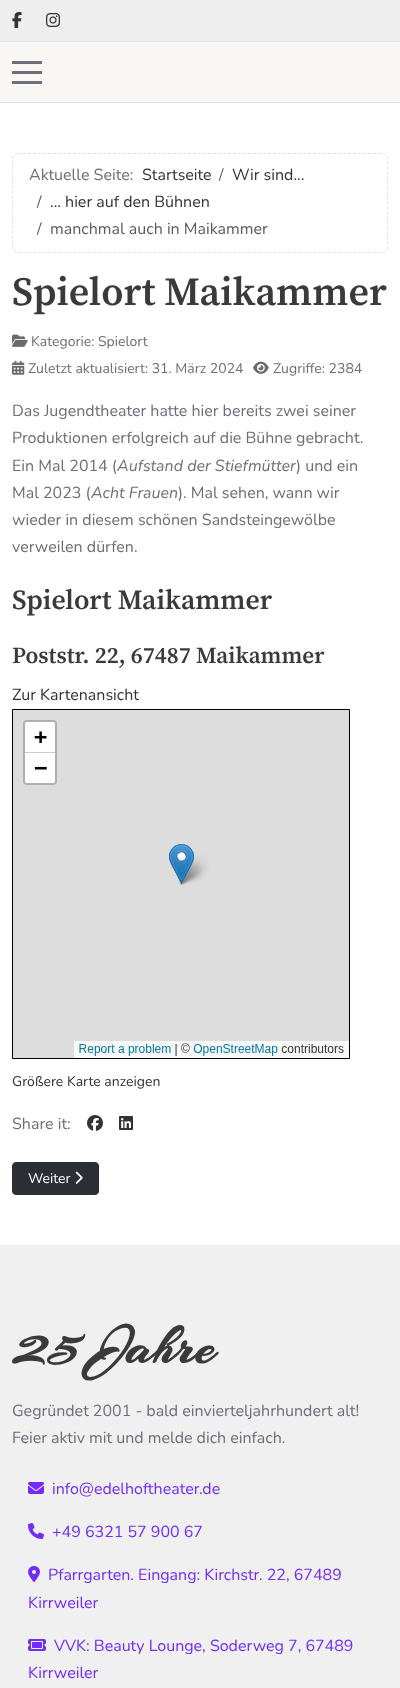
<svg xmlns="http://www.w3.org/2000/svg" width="400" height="1688">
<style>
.a{font:16px Nunito;fill:#6e6d7a}
.b{font:16px Nunito;fill:#333}
.c{font:16px Nunito;fill:#595c5f}
.d{font:600 40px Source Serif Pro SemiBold;fill:#3a3a3a}
.e{font:14px Nunito;fill:#6e6d7a}
.f{font:14px Nunito;fill:#6b6b6b}
.g{font:italic 16px Nunito;fill:#6e6d7a}
.h{font:600 27.75px Source Serif Pro SemiBold;fill:#3a3a3a}
.i{font:600 23.1px Source Serif Pro SemiBold;fill:#3a3a3a}
.j{font:14px Nunito;fill:#333}
.k{font:14px Nunito;fill:#fff}
.l{font:bold 56px Arizonia;fill:#3a3a3a}
.m{font:16px Nunito;fill:#712cf9}
</style>
<rect width="100%" height="100%" fill="#fff"/>
<path fill="#eee" d="M0 0h400v41H0z"/>
<path fill="#dee2e6" d="M0 41h400v1H0z"/>
<image href="1.png" x="12" y="12" width="10" height="16"/>
<image href="2.png" x="46" y="13" width="14" height="14"/>
<path fill="#f8f7f4" d="M0 42h400v60H0z"/>
<path fill="#dee2e6" d="M0 102h400v1H0z"/>
<path fill="#6e6d7a" d="M12 71h30v3H12z"/>
<path fill="#6e6d7a" d="M12 61h30v3H12z"/>
<path fill="#6e6d7a" d="M12 81h30v3H12z"/>
<path fill="none" stroke="#dee2e6" stroke-dasharray="3 2" d="M18 153.5h364c3 0 5.5 2.5 5.5 5.5v88c0 3-2.5 5.5-5.5 5.5h-364c-3 0-5.5-2.5-5.5-5.5v-88c0-3 2.5-5.5 5.5-5.5z"/>
<image href="3.png" x="12" y="334" width="16" height="13"/>
<image href="4.png" x="12" y="360" width="13" height="15"/>
<image href="5.png" x="253" y="361" width="16" height="13"/>
<path fill="none" stroke="#000" d="M12.5 709.5h337v349H12.5z"/>
<image href="6.png" x="13" y="710" width="336" height="348"/>
<image href="7.png" x="87" y="1115" width="16" height="16"/>
<image href="8.png" x="119" y="1116" width="14" height="14"/>
<rect fill="#2c2e36" stroke="#2c2e36" x="12.5" y="1162.5" width="86" height="32" rx="3.5"/>
<image href="9.png" x="75" y="1171" width="8" height="13"/>
<path fill="#f0f0f0" d="M0 1245h400v443H0z"/>
<image href="10.png" x="28" y="1482" width="16" height="12"/>
<image href="11.png" x="28" y="1523" width="16" height="16"/>
<image href="12.png" x="28" y="1566" width="12" height="16"/>
<image href="13.png" x="28" y="1639" width="18" height="12"/>
<text class="a" x="29" y="180">Aktuelle Seite:</text>
<text class="b" x="142" y="180">Startseite</text>
<text class="c" x="219" y="180">/</text>
<text class="b" x="232" y="180">Wir sind...</text>
<text class="c" x="37" y="207">/</text>
<text class="b" x="50" y="207">... hier auf den Bühnen</text>
<text class="c" x="37" y="234">/</text>
<text class="c" x="50" y="234">manchmal auch in Maikammer</text>
<text class="d" x="12" y="305">Spielort Maikammer</text>
<text class="e" x="31" y="346">Kategorie:</text>
<text class="f" x="98" y="346">Spielort</text>
<text class="e" x="28" y="373">Zuletzt aktualisiert: 31. März 2024</text>
<text class="e" x="273" y="373">Zugriffe: 2384</text>
<text class="a" x="12" y="416">Das Jugendtheater hatte hier bereits zwei seiner</text>
<text class="a" x="12" y="443">Produktionen erfolgreich auf die Bühne gebracht.</text>
<text class="a" x="12" y="471">Ein Mal 2014 (</text>
<text class="g" x="117" y="471">Aufstand der Stiefmütter</text>
<text class="a" x="296" y="471">) und ein</text>
<text class="a" x="12" y="498">Mal 2023 (</text>
<text class="g" x="91" y="498">Acht Frauen</text>
<text class="a" x="178" y="498">). Mal sehen, wann wir</text>
<text class="a" x="12" y="525">wieder in diesem schönen Sandsteingewölbe</text>
<text class="a" x="12" y="552">verweilen dürfen.</text>
<text class="h" x="12" y="609">Spielort Maikammer</text>
<text class="i" x="12" y="663">Poststr. 22, 67487 Maikammer</text>
<text class="b" x="12" y="700">Zur Kartenansicht</text>
<text class="j" x="12" y="1086">Größere Karte anzeigen</text>
<text class="a" x="12" y="1129">Share it:</text>
<text class="k" x="28" y="1183">Weiter</text>
<text class="l" x="12" y="1363">25 Jahre</text>
<text class="a" x="12" y="1416">Gegründet 2001 - bald einvierteljahrhundert alt!</text>
<text class="a" x="12" y="1443">Feier aktiv mit und melde dich einfach.</text>
<text class="m" x="52" y="1494">info@edelhoftheater.de</text>
<text class="m" x="52" y="1537">+49 6321 57 900 67</text>
<text class="m" x="48" y="1580">Pfarrgarten. Eingang: Kirchstr. 22, 67489</text>
<text class="m" x="28" y="1608">Kirrweiler</text>
<text class="m" x="54" y="1651">VVK: Beauty Lounge, Soderweg 7, 67489</text>
<text class="m" x="28" y="1678">Kirrweiler</text>
</svg>
